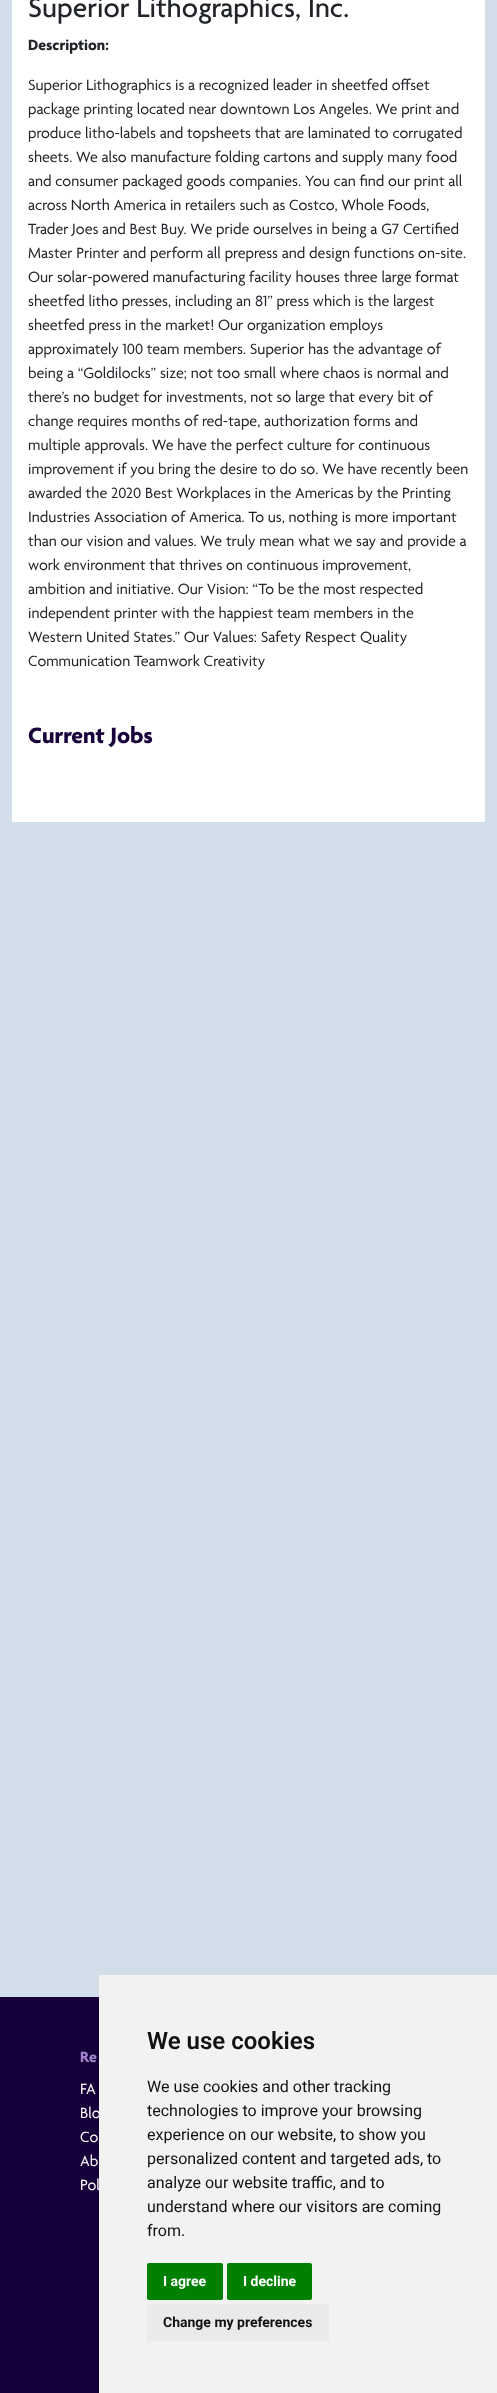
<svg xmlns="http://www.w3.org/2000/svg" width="497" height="2393">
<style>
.a{font:500 29.5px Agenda;fill:#212529}
.b{font:bold 16px Agenda;fill:#212529}
.c{font:16px Agenda;fill:#212529}
.d{font:bold 24px Agenda;fill:#170039}
.e{font:bold 16px Agenda;fill:#a084ce}
.f{font:16px Agenda;fill:#fff}
.g{font:600 24px Roboto;fill:#111}
.h{font:16px Roboto;fill:#111}
.i{font:bold 14px Roboto;fill:#fff}
.j{font:bold 14px Roboto;fill:#111}
</style>
<rect width="100%" height="100%" fill="#d2dfeb"/>
<path fill="#fff" d="M12 0h473v822H12z"/>
<path fill="#170039" d="M0 1997h99v396H0z"/>
<text class="a" x="28" y="17">Superior Lithographics, Inc.</text>
<text class="b" x="28" y="50">Description:</text>
<text class="c" x="28" y="90">Superior Lithographics is a recognized leader in sheetfed offset</text>
<text class="c" x="28" y="114">package printing located near downtown Los Angeles. We print and</text>
<text class="c" x="28" y="138">produce litho-labels and topsheets that are laminated to corrugated</text>
<text class="c" x="28" y="162">sheets. We also manufacture folding cartons and supply many food</text>
<text class="c" x="28" y="186">and consumer packaged goods companies. You can find our print all</text>
<text class="c" x="28" y="210">across North America in retailers such as Costco, Whole Foods,</text>
<text class="c" x="28" y="234">Trader Joes and Best Buy. We pride ourselves in being a G7 Certified</text>
<text class="c" x="28" y="258">Master Printer and perform all prepress and design functions on-site.</text>
<text class="c" x="28" y="282">Our solar-powered manufacturing facility houses three large format</text>
<text class="c" x="28" y="306">sheetfed litho presses, including an 81” press which is the largest</text>
<text class="c" x="28" y="330">sheetfed press in the market! Our organization employs</text>
<text class="c" x="28" y="354">approximately 100 team members. Superior has the advantage of</text>
<text class="c" x="28" y="378">being a “Goldilocks” size; not too small where chaos is normal and</text>
<text class="c" x="28" y="402">there’s no budget for investments, not so large that every bit of</text>
<text class="c" x="28" y="426">change requires months of red-tape, authorization forms and</text>
<text class="c" x="28" y="450">multiple approvals. We have the perfect culture for continuous</text>
<text class="c" x="28" y="474">improvement if you bring the desire to do so. We have recently been</text>
<text class="c" x="28" y="498">awarded the 2020 Best Workplaces in the Americas by the Printing</text>
<text class="c" x="28" y="522">Industries Association of America. To us, nothing is more important</text>
<text class="c" x="28" y="546">than our vision and values. We truly mean what we say and provide a</text>
<text class="c" x="28" y="570">work environment that thrives on continuous improvement,</text>
<text class="c" x="28" y="594">ambition and initiative. Our Vision: “To be the most respected</text>
<text class="c" x="28" y="618">independent printer with the happiest team members in the</text>
<text class="c" x="28" y="642">Western United States.” Our Values: Safety Respect Quality</text>
<text class="c" x="28" y="666">Communication Teamwork Creativity</text>
<text class="d" x="28" y="743">Current Jobs</text>
<text class="e" x="80" y="2062">Re</text>
<text class="f" x="80" y="2094">FA</text>
<text class="f" x="80" y="2118">Blo</text>
<text class="f" x="80" y="2142">Co</text>
<text class="f" x="80" y="2166">Ab</text>
<text class="f" x="80" y="2190">Pol</text>
<path fill="#f2f2f2" d="M99 1975h398v418H99z"/>
<text class="g" x="147" y="2049">We use cookies</text>
<text class="h" x="147" y="2092">We use cookies and other tracking</text>
<text class="h" x="147" y="2116">technologies to improve your browsing</text>
<text class="h" x="147" y="2140">experience on our website, to show you</text>
<text class="h" x="147" y="2164">personalized content and targeted ads, to</text>
<text class="h" x="147" y="2188">analyze our website traffic, and to</text>
<text class="h" x="147" y="2212">understand where our visitors are coming</text>
<text class="h" x="147" y="2236">from.</text>
<rect fill="#008000" x="147" y="2263" width="76" height="37" rx="2"/>
<text class="i" x="163" y="2286">I agree</text>
<rect fill="#008000" x="227" y="2263" width="85" height="37" rx="2"/>
<text class="i" x="243" y="2286">I decline</text>
<rect fill="#eaeaea" x="147" y="2304" width="182" height="37" rx="2"/>
<text class="j" x="163" y="2327">Change my preferences</text>
</svg>
